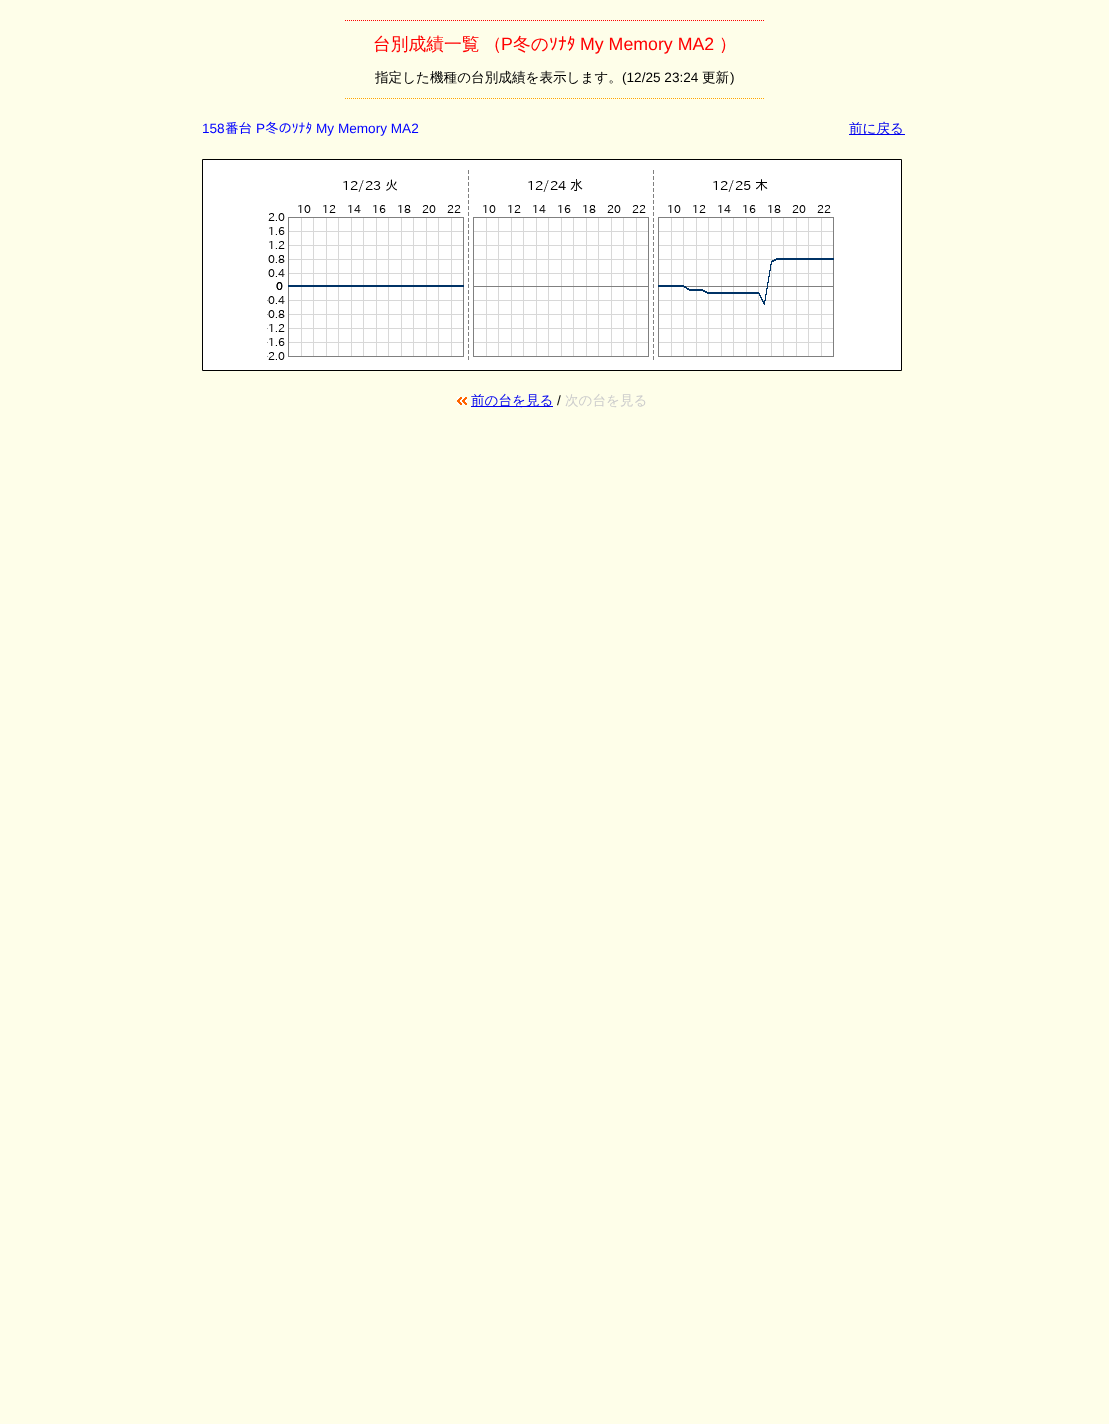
<svg xmlns="http://www.w3.org/2000/svg" width="1109" height="1424">
<style>
.a{font:500 17.75px WenQuanYi Zen Hei;fill:#f00}
.b{font:17.75px Liberation Sans;fill:#f00}
.c{font:17.75px IPAPGothic;fill:#f00}
.d{font:500 13.6px WenQuanYi Zen Hei;fill:#000}
.e{font:13.6px Liberation Sans;fill:#000}
.f{font:13.6px Liberation Sans;fill:#00f}
.g{font:13.6px IPAPGothic;fill:#00f}
.h{font:500 13.6px WenQuanYi Zen Hei;fill:#00e}
.i{font:500 13.6px WenQuanYi Zen Hei;fill:#ccc}
</style>
<rect width="100%" height="100%" fill="#fefee9"/>
<path fill="none" stroke="#f00" stroke-dasharray="1 1" d="M345 20.5h420"/>
<path fill="none" stroke="#ffa500" stroke-dasharray="1 1" d="M345 98.5h420"/>
<path fill="#00e" d="M849 134h56v1H849z"/>
<path fill="#fff" stroke="#000" d="M202.5 159.5h699v211H202.5z"/>
<image href="1.png" x="267" y="170" width="567" height="190"/>
<image href="2.png" x="457" y="397" width="10" height="8"/>
<path fill="#00e" d="M471 406h82v1H471z"/>
<text class="a" x="373" y="50">台別成績一覧</text>
<text class="a" x="484" y="50">（</text>
<text class="b" x="501" y="50">P</text>
<text class="a" x="513" y="50">冬の</text>
<text class="c" x="549" y="50">ｿﾅﾀ</text>
<text class="b" x="580" y="50">My Memory MA2</text>
<text class="a" x="719" y="50">）</text>
<text class="d" x="375" y="82">指定した機種の台別成績を表示します。</text>
<text class="e" x="622" y="82">(12/25 23:24</text>
<text class="d" x="702" y="82">更新</text>
<text class="e" x="730" y="82">)</text>
<text class="f" x="202" y="133">158</text>
<text class="g" x="225" y="133">番台</text>
<text class="f" x="256" y="133">P</text>
<text class="g" x="265" y="133">冬のｿﾅﾀ</text>
<text class="f" x="316" y="133">My Memory MA2</text>
<text class="h" x="849" y="133">前に戻る</text>
<text class="h" x="471" y="405">前の台を見る</text>
<text class="e" x="557" y="405">/</text>
<text class="i" x="565" y="405">次の台を見る</text>
</svg>
